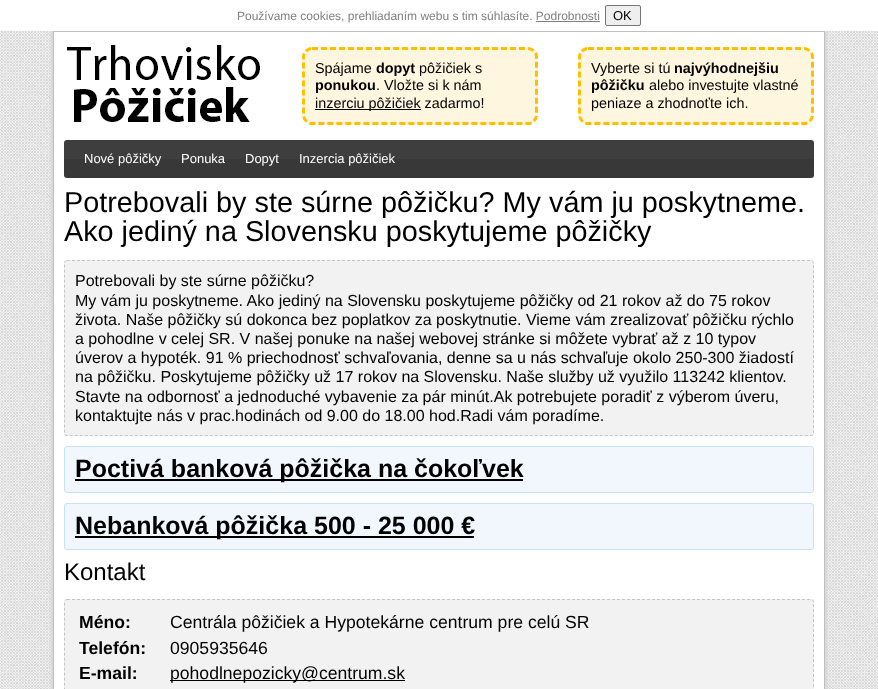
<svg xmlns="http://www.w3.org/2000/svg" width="878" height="689">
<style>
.a{font:12px Liberation Sans;fill:#808080}
.b{font:13px Liberation Sans;fill:#000}
.c{font:14.4px Liberation Sans;fill:#000}
.d{font:bold 14.4px Liberation Sans;fill:#000}
.e{font:13px Liberation Sans;fill:#fff}
.f{font:28.8px Liberation Sans;fill:#000}
.g{font:16px Liberation Sans;fill:#000}
.h{font:bold 25px Liberation Sans;fill:#000}
.i{font:24px Liberation Sans;fill:#000}
.j{font:bold 17.6px Liberation Sans;fill:#000}
.k{font:17.6px Liberation Sans;fill:#000}
</style>
<rect width="100%" height="100%" fill="#fff"/>
<image href="1.png" x="0" y="31" width="878" height="658"/>
<rect fill="#d6d6d6" filter="blur(1px)" x="51" y="29" width="776" height="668" rx="5"/>
<path fill="#fff" d="M51 28h776v3H51z"/>
<path fill="#808080" d="M536 21h64v1H536z"/>
<rect fill="#efefef" stroke="#767676" x="605.5" y="5.5" width="35" height="20" rx="1.5"/>
<path fill="#fff" stroke="#c0c0c0" d="M53.5 31.5h771v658H53.5z"/>
<image href="2.png" x="67" y="45" width="193" height="77"/>
<rect fill="#fff6e0" x="302" y="47" width="236" height="78" rx="10"/>
<path fill="none" stroke="#ffbf00" stroke-width="3" stroke-dasharray="6 3" d="M312 48.5h216c4.5 0 8.5 4 8.5 8.5v58c0 4.5-4 8.5-8.5 8.5h-216c-4.5 0-8.5-4-8.5-8.5v-58c0-4.5 4-8.5 8.5-8.5z"/>
<path fill="#000" d="M315 109h106v1H315z"/>
<rect fill="#fff6e0" x="578" y="47" width="236" height="78" rx="10"/>
<path fill="none" stroke="#ffbf00" stroke-width="3" stroke-dasharray="6 3" d="M588 48.5h216c4.5 0 8.5 4 8.5 8.5v58c0 4.5-4 8.5-8.5 8.5h-216c-4.5 0-8.5-4-8.5-8.5v-58c0-4.5 4-8.5 8.5-8.5z"/>
<image href="3.png" x="64" y="140" width="750" height="38"/>
<rect fill="#f2f2f2" x="64" y="260" width="750" height="176" rx="3"/>
<path fill="none" stroke="#c5c5c5" stroke-dasharray="3 2" d="M67 260.5h744c1.5 0 2.5 1 2.5 2.5v170c0 1.5-1 2.5-2.5 2.5h-744c-1.5 0-2.5-1-2.5-2.5v-170c0-1.5 1-2.5 2.5-2.5z"/>
<rect fill="#f1f7fc" stroke="#c7e1f8" x="64.5" y="446.5" width="749" height="46" rx="2.5"/>
<path fill="#000" d="M75 479h448v2H75z"/>
<rect fill="#f1f7fc" stroke="#c7e1f8" x="64.5" y="503.5" width="749" height="46" rx="2.5"/>
<path fill="#000" d="M75 536h399v2H75z"/>
<rect fill="#f2f2f2" x="64" y="599" width="750" height="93" rx="3"/>
<path fill="none" stroke="#c5c5c5" stroke-dasharray="3 2" d="M67 599.5h744c1.5 0 2.5 1 2.5 2.5v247c0 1.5-1 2.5-2.5 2.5h-744c-1.5 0-2.5-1-2.5-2.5v-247c0-1.5 1-2.5 2.5-2.5z"/>
<path fill="#000" d="M170 680h235v1H170z"/>
<text class="a" x="237" y="20">Používame cookies, prehliadaním webu s tim súhlasíte. Podrobnosti</text>
<text class="b" x="613" y="20">OK</text>
<text class="c" x="315" y="73">Spájame</text>
<text class="d" x="376" y="73">dopyt</text>
<text class="c" x="419" y="73">pôžičiek s</text>
<text class="d" x="315" y="90">ponukou</text>
<text class="c" x="376" y="90">. Vložte si k nám</text>
<text class="c" x="315" y="108">inzerciu pôžičiek zadarmo!</text>
<text class="c" x="591" y="73">Vyberte si tú</text>
<text class="d" x="674" y="73">najvýhodnejšiu</text>
<text class="d" x="591" y="90">pôžičku</text>
<text class="c" x="649" y="90">alebo investujte vlastné</text>
<text class="c" x="591" y="108">peniaze a zhodnoťte ich.</text>
<text class="e" x="84" y="163">Nové pôžičky</text>
<text class="e" x="181" y="163">Ponuka</text>
<text class="e" x="245" y="163">Dopyt</text>
<text class="e" x="299" y="163">Inzercia pôžičiek</text>
<text class="f" x="64" y="212">Potrebovali by ste súrne pôžičku? My vám ju poskytneme.</text>
<text class="f" x="64" y="241">Ako jediný na Slovensku poskytujeme pôžičky</text>
<text class="g" x="75" y="286">Potrebovali by ste súrne pôžičku?</text>
<text class="g" x="75" y="306">My vám ju poskytneme. Ako jediný na Slovensku poskytujeme pôžičky od 21 rokov až do 75 rokov</text>
<text class="g" x="75" y="325">života. Naše pôžičky sú dokonca bez poplatkov za poskytnutie. Vieme vám zrealizovať pôžičku rýchlo</text>
<text class="g" x="75" y="344">a pohodlne v celej SR. V našej ponuke na našej webovej stránke si môžete vybrať až z 10 typov</text>
<text class="g" x="75" y="363">úverov a hypoték. 91 % priechodnosť schvaľovania, denne sa u nás schvaľuje okolo 250-300 žiadostí</text>
<text class="g" x="75" y="382">na pôžičku. Poskytujeme pôžičky už 17 rokov na Slovensku. Naše služby už využilo 113242 klientov.</text>
<text class="g" x="75" y="402">Stavte na odbornosť a jednoduché vybavenie za pár minút.Ak potrebujete poradiť z výberom úveru,</text>
<text class="g" x="75" y="421">kontaktujte nás v prac.hodinách od 9.00 do 18.00 hod.Radi vám poradíme.</text>
<text class="h" x="75" y="477">Poctivá banková pôžička na čokoľvek</text>
<text class="h" x="75" y="534">Nebanková pôžička 500 - 25 000 €</text>
<text class="i" x="64" y="580">Kontakt</text>
<text class="j" x="79" y="628">Méno:</text>
<text class="k" x="170" y="628">Centrála pôžičiek a Hypotekárne centrum pre celú SR</text>
<text class="j" x="79" y="654">Telefón:</text>
<text class="k" x="170" y="654">0905935646</text>
<text class="j" x="79" y="679">E-mail:</text>
<text class="k" x="170" y="679">pohodlnepozicky@centrum.sk</text>
</svg>
